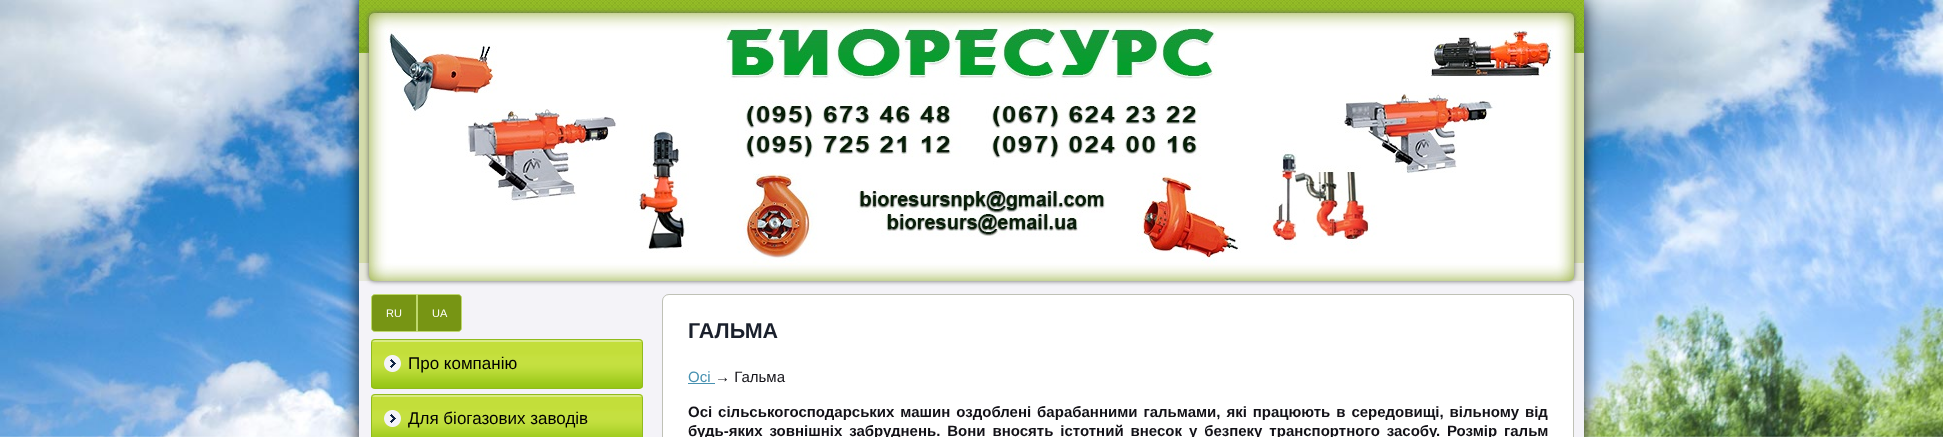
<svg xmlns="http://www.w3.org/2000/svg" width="1943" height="437">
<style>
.a{font:11px Liberation Sans;fill:#fff}
.b{font:17px Liberation Sans;fill:#000}
.c{font:bold 21.5px Liberation Sans;fill:#1a202c}
.d{font:15px Liberation Sans;fill:#4791b1}
.e{font:15px Liberation Sans;fill:#121117}
.f{font:bold 15px Liberation Sans;fill:#121117}
</style>
<rect width="100%" height="100%" fill="#fff"/>
<image href="1.png" x="0" y="0" width="1943" height="437"/>
<path fill="#000000cc" filter="blur(8.5px)" d="M359 0h1225v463H359z"/>
<path fill="#f4f3f8" d="M359 281h1225v156H359z"/>
<image href="2.png" x="359" y="0" width="1225" height="13"/>
<path fill="#d3dbaa" d="M359 53h1225v210H359z"/>
<image href="3.png" x="359" y="13" width="1225" height="40"/>
<path fill="#e6e8db" d="M359 263h1225v18H359z"/>
<rect fill="#666" filter="blur(2.5px)" x="369" y="13" width="1205" height="268" rx="5"/>
<image href="4.png" x="369" y="13" width="1205" height="268"/>
<path fill="#779514" stroke="#bed86b" d="M375 294.5h41.5v37h-41.5c-2 0-3.5-1.5-3.5-3.5v-30c0-2 1.5-3.5 3.5-3.5z"/>
<path fill="#779514" stroke="#bed86b" d="M417.5 294.5h40.5c2 0 3.5 1.5 3.5 3.5v30c0 2-1.5 3.5-3.5 3.5h-40.5z"/>
<rect fill="#c3de3a" x="371" y="339" width="272" height="50" rx="4"/>
<image href="5.png" x="371" y="340" width="272" height="48"/>
<rect fill="none" stroke="#90bb1d" x="371.5" y="339.5" width="271" height="49" rx="3.5"/>
<rect fill="#c3de3a" x="371" y="394" width="272" height="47" rx="4"/>
<image href="6.png" x="371" y="395" width="272" height="42"/>
<rect fill="none" stroke="#90bb1d" x="371.5" y="394.5" width="271" height="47" rx="3.5"/>
<rect fill="#e7e6eb" filter="blur(0.5px)" x="662" y="294" width="912" height="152" rx="7"/>
<rect fill="#fff" stroke="#bfc1b6" x="662.5" y="294.5" width="911" height="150" rx="6.5"/>
<path fill="#4791b1" d="M688 383h27v1H688z"/>
<text class="a" x="386" y="317">RU</text>
<text class="a" x="432" y="317">UA</text>
<text class="b" x="408" y="369">Про компанію</text>
<text class="b" x="408" y="424">Для біогазових заводів</text>
<text class="c" x="688" y="338">ГАЛЬМА</text>
<text class="d" x="688" y="382">Осі</text>
<text class="e" x="715" y="382">→ Гальма</text>
<text class="f" x="688" y="417" word-spacing="1.75">Осі сільськогосподарських машин оздоблені барабанними гальмами, які працюють в середовищі, вільному від</text>
<text class="f" x="688" y="436" word-spacing="2.75">будь-яких зовнішніх забруднень. Вони вносять істотний внесок у безпеку транспортногo засобу. Розмір гальм</text>
</svg>
